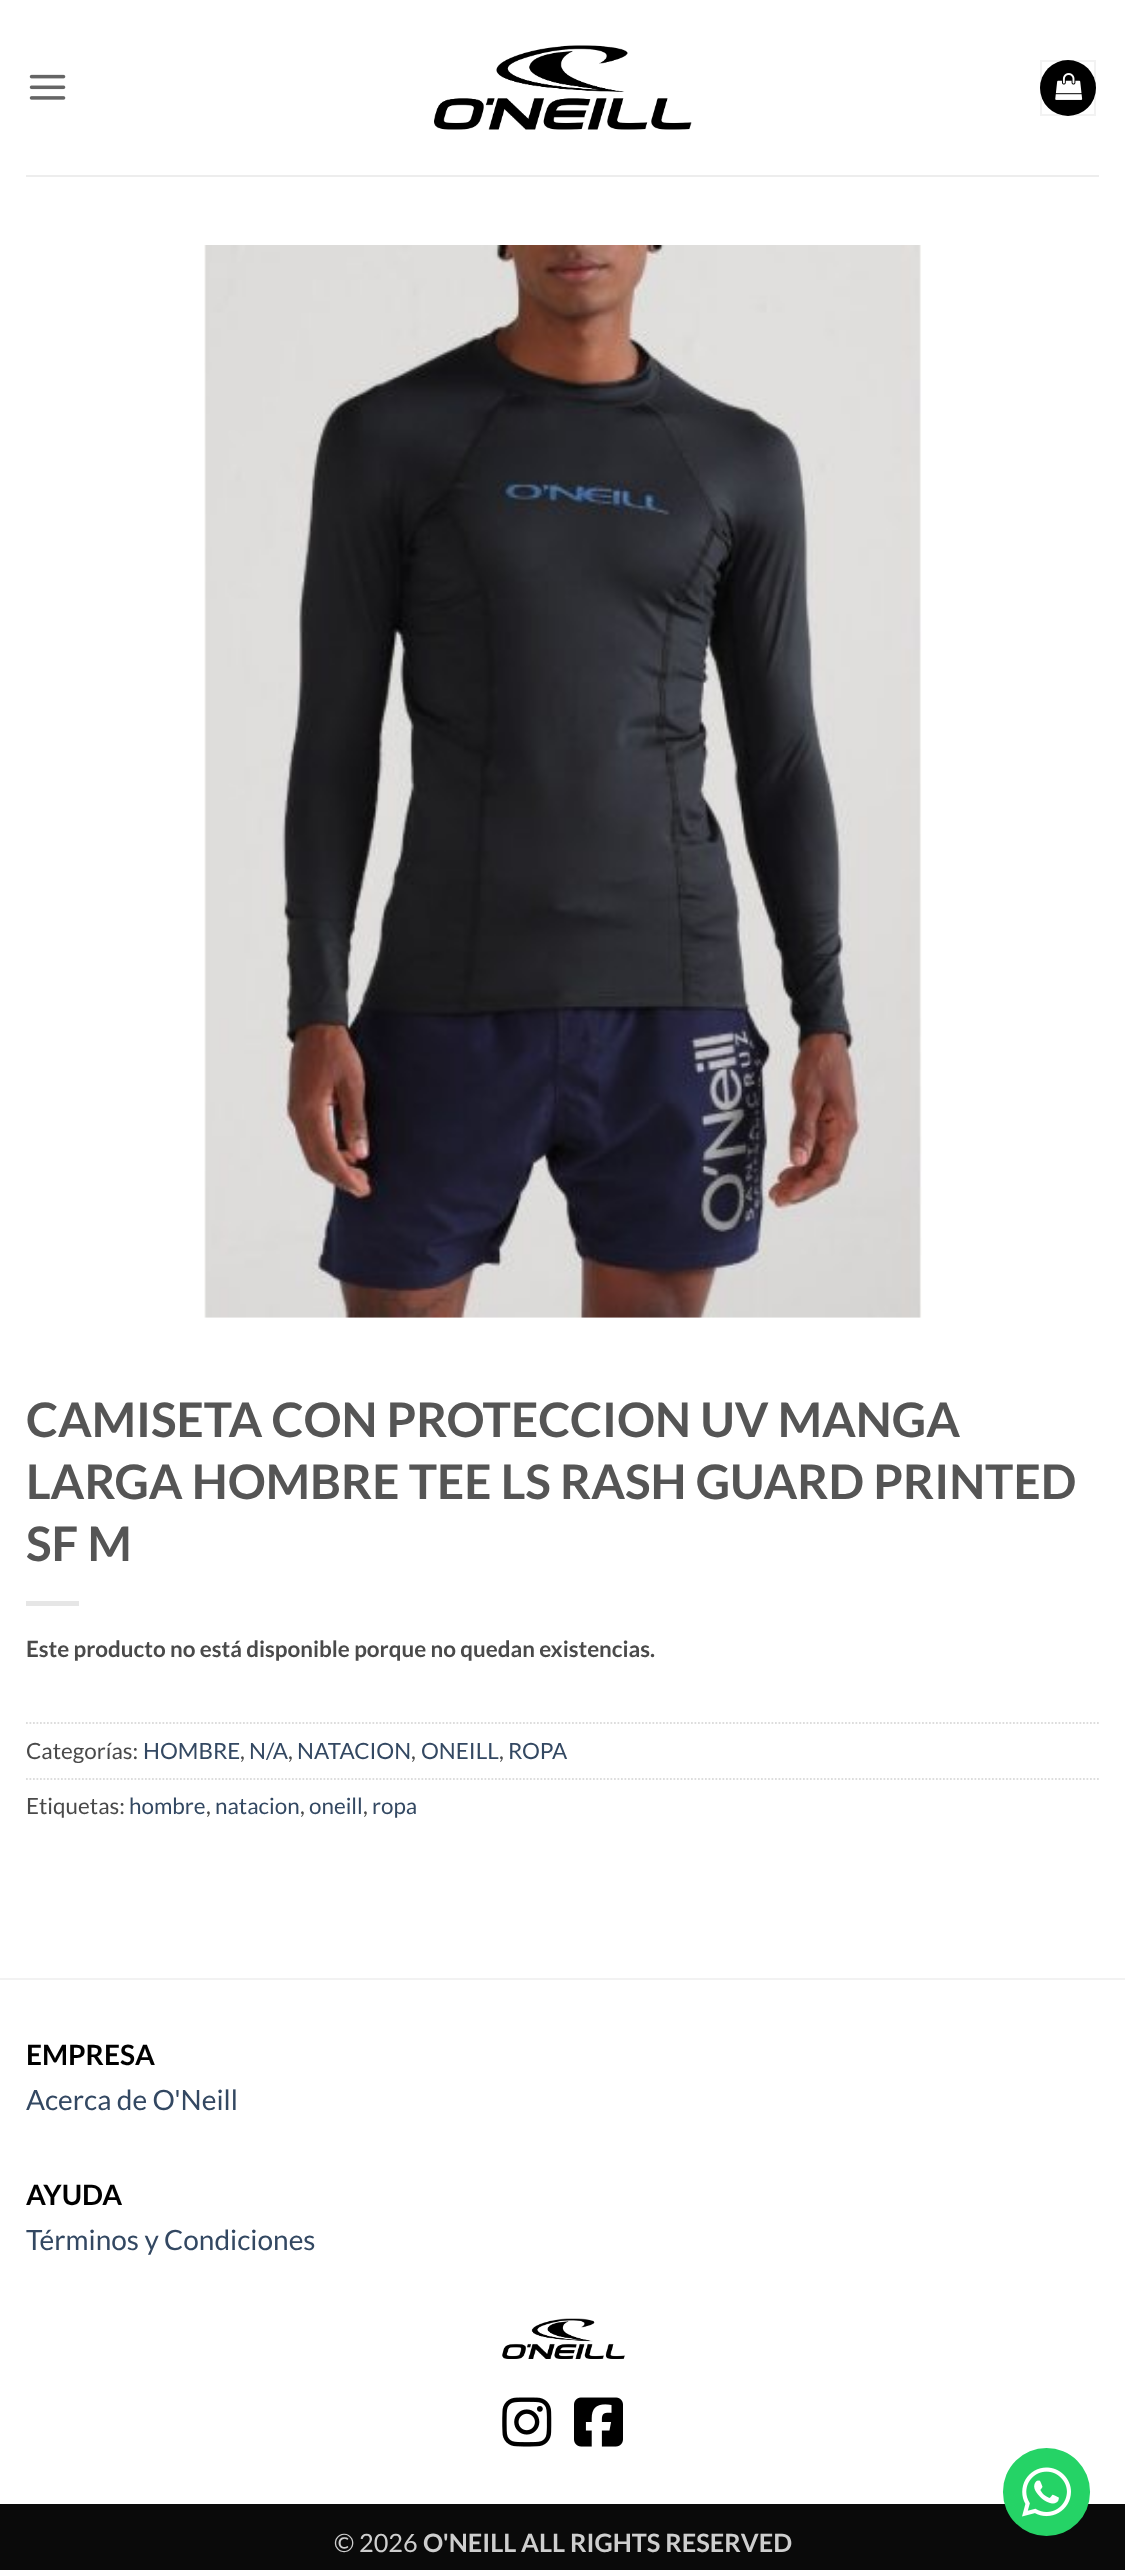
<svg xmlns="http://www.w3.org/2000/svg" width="1125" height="2570">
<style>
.a{font:bold 47.6px Lato;fill:#555}
.b{font:bold 22.4px Lato;fill:#4a4a4a}
.c{font:22.4px Lato;fill:#4a4a4a}
.d{font:22.4px Lato;fill:#334862}
.e{font:bold 28px Lato;fill:#000}
.f{font:28px Lato;fill:#334862}
.g{font:25.25px Lato;fill:#cecece}
.h{font:bold 25.25px Lato;fill:#cecece}
</style>
<rect width="100%" height="100%" fill="#fff"/>
<image href="1.png" x="29" y="74" width="37" height="26"/>
<image href="2.png" x="434" y="45" width="258" height="85"/>
<circle fill="#000" cx="1068" cy="88" r="28"/>
<path fill="none" stroke="#0000000d" stroke-width="2" d="M1041 61h54v54H1041z"/>
<image href="3.png" x="1055" y="73" width="28" height="27"/>
<path fill="#ededed" d="M26 175h1073v2H26z"/>
<image href="4.png" x="204" y="245" width="718" height="1073"/>
<path fill="#e6e6e6" d="M26 1601h53v5H26z"/>
<path fill="none" stroke="#ddd" stroke-width="1.8" stroke-dasharray="1.75 1.75" d="M26 1723h1073"/>
<path fill="none" stroke="#ddd" stroke-width="1.8" stroke-dasharray="1.75 1.75" d="M26 1779h1073"/>
<path fill="#f2f2f2" d="M0 1978h1125v2H0z"/>
<image href="5.png" x="502" y="2318" width="123" height="41"/>
<image href="6.png" x="502" y="2397" width="50" height="50"/>
<image href="7.png" x="574" y="2397" width="49" height="50"/>
<path fill="#0a0a0a" d="M0 2504h1125v66H0z"/>
<rect fill="#25d366" x="1003" y="2448" width="87" height="88" rx="43.5"/>
<image href="8.png" x="1022" y="2467" width="49" height="50"/>
<text class="a" x="26" y="1437">CAMISETA CON PROTECCION UV MANGA</text>
<text class="a" x="26" y="1499">LARGA HOMBRE TEE LS RASH GUARD PRINTED</text>
<text class="a" x="26" y="1561">SF M</text>
<text class="b" x="26" y="1657">Este producto no está disponible porque no quedan existencias.</text>
<text class="c" x="26" y="1759">Categorías:</text>
<text class="d" x="143" y="1759">HOMBRE</text>
<text class="c" x="240" y="1759">,</text>
<text class="d" x="249" y="1759">N/A</text>
<text class="c" x="288" y="1759">,</text>
<text class="d" x="297" y="1759">NATACION</text>
<text class="c" x="411" y="1759">,</text>
<text class="d" x="421" y="1759">ONEILL</text>
<text class="c" x="499" y="1759">,</text>
<text class="d" x="508" y="1759">ROPA</text>
<text class="c" x="26" y="1814">Etiquetas:</text>
<text class="d" x="129" y="1814">hombre</text>
<text class="c" x="206" y="1814">,</text>
<text class="d" x="215" y="1814">natacion</text>
<text class="c" x="300" y="1814">,</text>
<text class="d" x="309" y="1814">oneill</text>
<text class="c" x="363" y="1814">,</text>
<text class="d" x="372" y="1814">ropa</text>
<text class="e" x="26" y="2065">EMPRESA</text>
<text class="f" x="26" y="2110">Acerca de O'Neill</text>
<text class="e" x="26" y="2205">AYUDA</text>
<text class="f" x="26" y="2250">Términos y Condiciones</text>
<text class="g" x="334" y="2552">© 2026</text>
<text class="h" x="423" y="2552">O'NEILL ALL RIGHTS RESERVED</text>
</svg>
